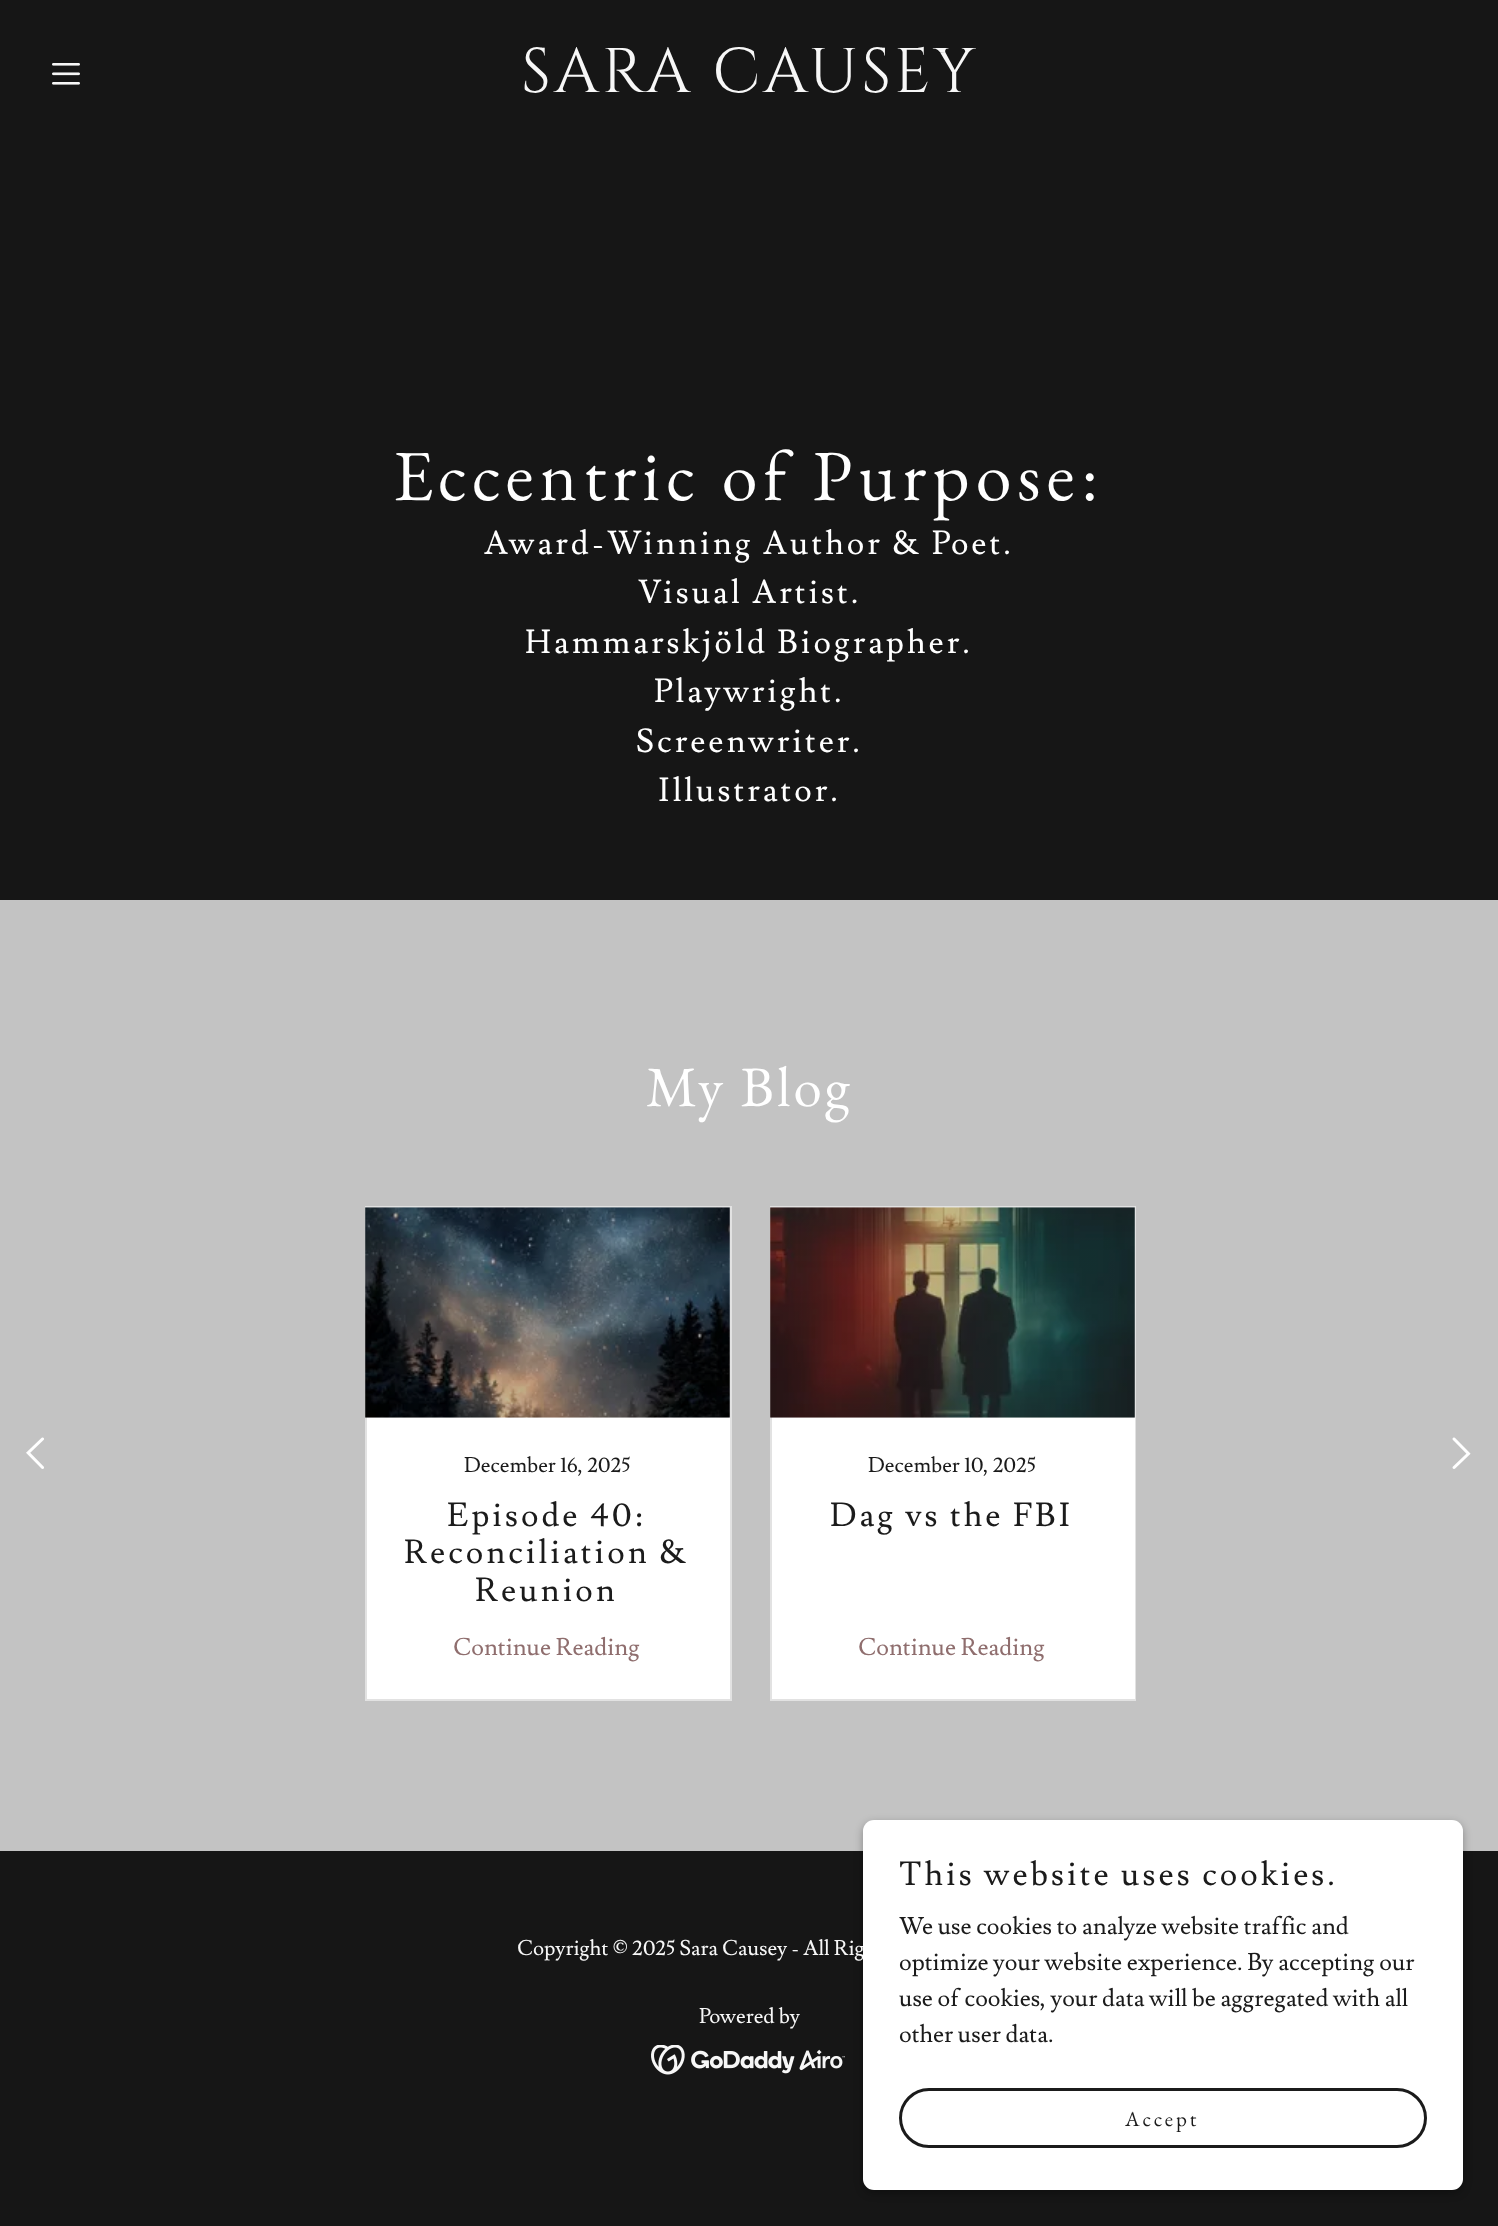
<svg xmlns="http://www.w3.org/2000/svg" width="1498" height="2226">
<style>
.a{font:63px Cinzel;letter-spacing:3px;fill:#f7f7f7}
.b{font:72px EB Garamond;letter-spacing:6px;fill:#fff}
.c{font:33px Lusitana;letter-spacing:3px;fill:#fff}
.d{font:57px EB Garamond;letter-spacing:3px;fill:#fff}
.e{font:21px Lusitana;fill:#1b1b1b}
.f{font:33px Lusitana;letter-spacing:3px;fill:#1b1b1b}
.g{font:24px Lusitana;fill:#8f6e6e}
.h{font:21px Lusitana;fill:#f7f7f7}
.i{font:24px Lusitana;fill:#1b1b1b}
.j{font:21px EB Garamond;letter-spacing:3px;fill:#1b1b1b}
</style>
<defs>
<clipPath id="clip1"><path d="M750 1206h386v495H750z"/></clipPath>
<linearGradient id="g1" gradientUnits="userSpaceOnUse" x1="610" y1="1594" x2="706" y2="1594"><stop offset="0" stop-color="#fff" stop-opacity="0"/><stop offset="1" stop-color="#fff"/></linearGradient>
</defs>
<rect width="100%" height="100%" fill="#161616"/>
<image href="1.png" x="52" y="63" width="28" height="22"/>
<path fill="#c3c3c3" d="M0 900h1498v951H0z"/>
<image href="2.png" x="26" y="1437" width="18" height="32"/>
<image href="3.png" x="1452" y="1437" width="19" height="32"/>
<path fill="#fff" stroke="#e2e2e2" stroke-width="2" d="M366 1207h365v493H366z"/>
<image href="4.png" x="365" y="1207" width="365" height="211"/>
<path fill="#fff" d="M772 1208h363v491H772z"/>
<g clip-path="url(#clip1)">
<path fill="none" stroke="#e2e2e2" stroke-width="2" d="M771 1207h365v493H771z"/>
</g>
<image href="5.png" x="770" y="1207" width="365" height="211"/>
<image href="6.png" x="651" y="2045" width="194" height="30"/>
<rect fill="#0000004d" filter="blur(4.5px)" x="863" y="1823" width="600" height="370" rx="11"/>
<text class="a" x="521" y="92">SARA CAUSEY</text>
<text class="b" x="393" y="500">Eccentric of Purpose:</text>
<text class="c" x="484" y="554">Award-Winning Author &amp; Poet.</text>
<text class="c" x="638" y="603">Visual Artist.</text>
<text class="c" x="525" y="653">Hammarskjöld Biographer.</text>
<text class="c" x="654" y="702">Playwright.</text>
<text class="c" x="636" y="752">Screenwriter.</text>
<text class="c" x="658" y="801">Illustrator.</text>
<text class="d" x="646" y="1106">My Blog</text>
<text class="e" x="464" y="1472">December 16, 2025</text>
<text class="f" x="447" y="1526">Episode 40:</text>
<text class="f" x="404" y="1563">Reconciliation &amp;</text>
<text class="f" x="475" y="1601">Reunion</text>
<path fill="url(#g1)" d="M612 1599h3v2H612z"/>
<text class="g" x="453" y="1655">Continue Reading</text>
<text class="e" x="868" y="1472">December 10, 2025</text>
<text class="f" x="830" y="1526">Dag vs the FBI</text>
<text class="g" x="858" y="1655">Continue Reading</text>
<text class="h" x="517" y="1955">Copyright © 2025 Sara Causey - All Rig</text>
<text class="h" x="699" y="2023">Powered by</text>
<rect fill="#fff" x="863" y="1820" width="600" height="370" rx="11"/>
<text class="f" x="899" y="1885">This website uses cookies.</text>
<text class="i" x="899" y="1934">We use cookies to analyze website traffic and</text>
<text class="i" x="899" y="1970">optimize your website experience. By accepting our</text>
<text class="i" x="899" y="2006">use of cookies, your data will be aggregated with all</text>
<text class="i" x="899" y="2042">other user data.</text>
<rect fill="none" stroke="#1b1b1b" stroke-width="3" x="900.5" y="2089.5" width="525" height="57" rx="28.5"/>
<text class="j" x="1125" y="2126">Accept</text>
</svg>
